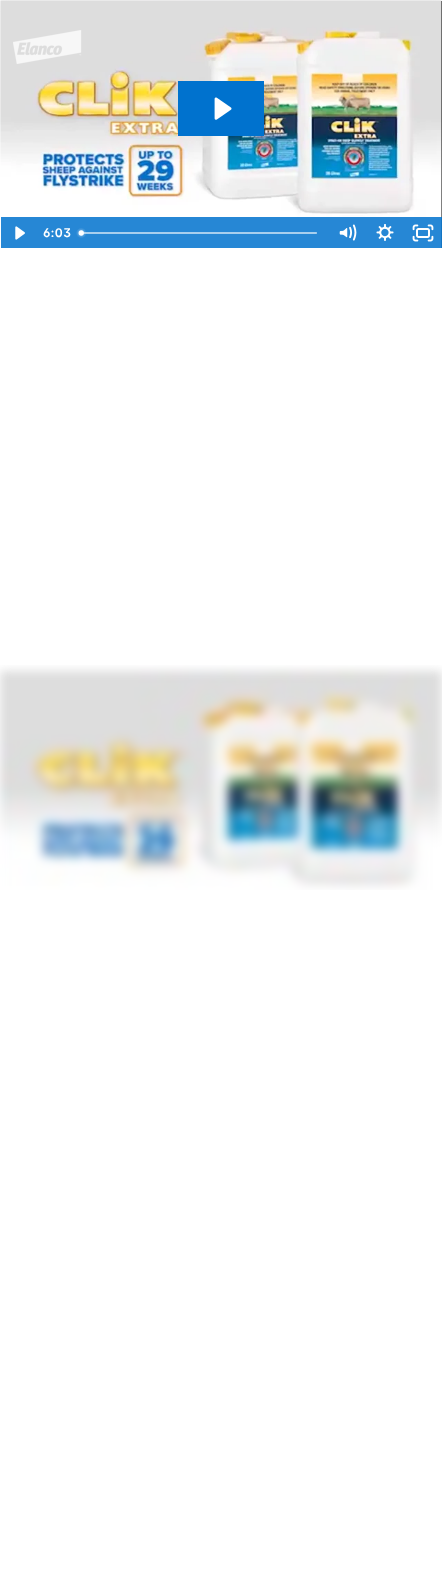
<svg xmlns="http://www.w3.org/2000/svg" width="442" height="1590">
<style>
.a{font:600 12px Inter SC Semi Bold;letter-spacing:0.5px;fill:#fff}
</style>
<rect width="100%" height="100%" fill="#fff"/>
<image href="1.png" x="0" y="0" width="442" height="248"/>
<path fill="#000" d="M441 1h1v247H441z"/>
<image href="2.png" x="0" y="0" width="442" height="248"/>
<image href="3.png" x="13" y="30" width="69" height="34"/>
<path fill="#0072ce" d="M178 81h86v55H178z"/>
<image href="4.png" x="214" y="97" width="18" height="23"/>
<path fill="#0072ced9" d="M1 217h441v31H1z"/>
<image href="5.png" x="15" y="226" width="10" height="14"/>
<image href="6.png" x="76" y="228" width="241" height="10"/>
<image href="7.png" x="339" y="224" width="18" height="17"/>
<image href="8.png" x="376" y="224" width="18" height="17"/>
<image href="9.png" x="412" y="224" width="22" height="18"/>
<image href="10.png" x="0" y="665" width="442" height="225"/>
<text class="a" x="43" y="237">6:03</text>
</svg>
